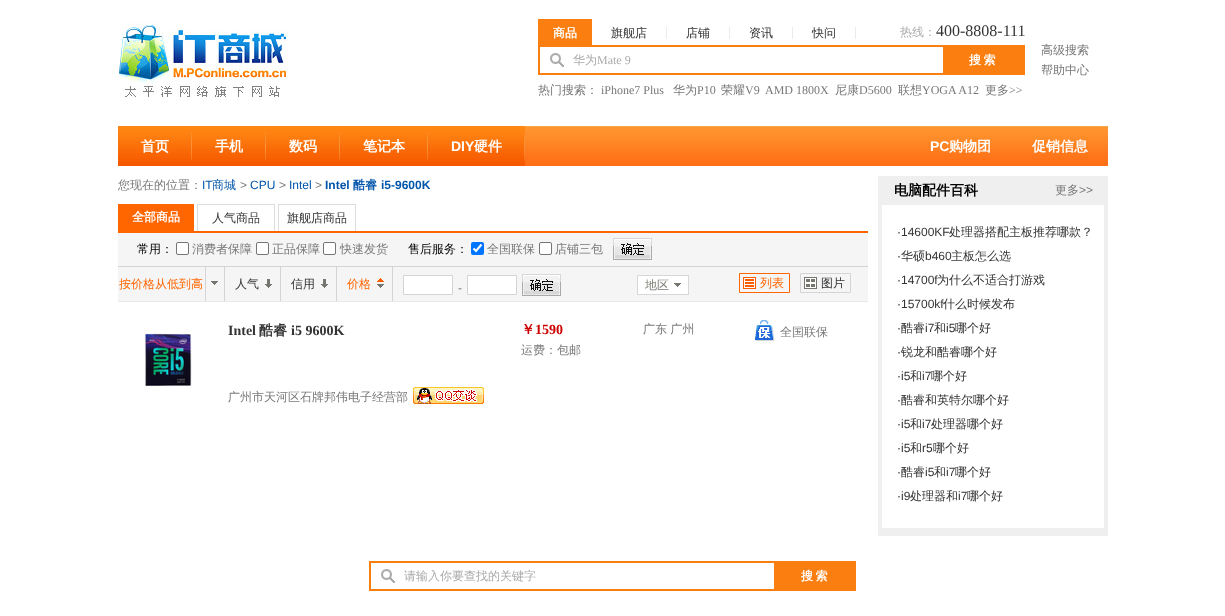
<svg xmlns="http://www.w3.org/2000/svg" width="1225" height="616">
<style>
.a{font:bold 12px WenQuanYi Zen Hei;fill:#fff}
.b{font:500 12px WenQuanYi Zen Hei;fill:#333}
.c{font:500 12px WenQuanYi Zen Hei;fill:#aaa}
.d{font:16px Liberation Serif;fill:#333}
.e{font:12px Liberation Serif;fill:#aaa}
.f{font:500 12px WenQuanYi Zen Hei;fill:#787878}
.g{font:12px Liberation Serif;fill:#787878}
.h{font:bold 14px WenQuanYi Zen Hei;fill:#fff}
.i{font:bold 14px Liberation Sans;fill:#fff}
.j{font:12px Liberation Sans;fill:#05a}
.k{font:500 12px WenQuanYi Zen Hei;fill:#05a}
.l{font:12px Liberation Sans;fill:#787878}
.m{font:bold 12px Liberation Sans;fill:#05a}
.n{font:bold 12px WenQuanYi Zen Hei;fill:#05a}
.o{font:500 12px WenQuanYi Zen Hei;fill:#000}
.p{font:500 12px WenQuanYi Zen Hei;fill:#f60}
.q{font:12px Liberation Sans;fill:#777870}
.r{font:500 12px WenQuanYi Zen Hei;fill:#777870}
.s{font:bold 14px Liberation Serif;fill:#333}
.t{font:bold 14px WenQuanYi Zen Hei;fill:#333}
.u{font:bold 14px WenQuanYi Zen Hei;fill:#c00}
.v{font:bold 14px Liberation Serif;fill:#c00}
.w{font:bold 14px WenQuanYi Zen Hei;fill:#000}
.x{font:12px Liberation Sans;fill:#333}
</style>
<rect width="100%" height="100%" fill="#fff"/>
<image href="1.png" x="118" y="21" width="168" height="79"/>
<path fill="#fb7e10" d="M538 19h54v26H538z"/>
<path fill="#ebebeb" d="M666 27h1v12H666z"/>
<path fill="#ebebeb" d="M729 27h1v12H729z"/>
<path fill="#ebebeb" d="M792 27h1v12H792z"/>
<path fill="#ebebeb" d="M855 27h1v12H855z"/>
<path fill="#fb7e10" d="M538 45h487v30H538z"/>
<path fill="#fff" d="M540 47h403v26H540z"/>
<image href="2.png" x="550" y="53" width="14" height="14"/>
<image href="3.png" x="525" y="126" width="583" height="40"/>
<image href="4.png" x="118" y="126" width="74" height="40"/>
<image href="4.png" x="192" y="126" width="74" height="40"/>
<image href="4.png" x="266" y="126" width="74" height="40"/>
<image href="5.png" x="340" y="126" width="88" height="40"/>
<image href="6.png" x="428" y="126" width="97" height="40"/>
<path fill="#f60" d="M118 231h750v2H118z"/>
<path fill="#f60" d="M118 204h76v27H118z"/>
<path fill="#ddd" d="M197 204h78v1H197z"/>
<path fill="#ddd" d="M274 204h1v27H274z"/>
<path fill="#ddd" d="M197 204h1v27H197z"/>
<path fill="#ddd" d="M278 204h78v1H278z"/>
<path fill="#ddd" d="M355 204h1v27H355z"/>
<path fill="#ddd" d="M278 204h1v27H278z"/>
<path fill="#f5f5f5" d="M118 233h750v33H118z"/>
<path fill="#d4d4d4" d="M118 266h750v1H118z"/>
<rect fill="#fff" stroke="#767676" x="176.5" y="242.5" width="12" height="12" rx="1.5"/>
<rect fill="#fff" stroke="#767676" x="256.5" y="242.5" width="12" height="12" rx="1.5"/>
<rect fill="#fff" stroke="#767676" x="323.5" y="242.5" width="12" height="12" rx="1.5"/>
<rect fill="#0075ff" x="471" y="242" width="13" height="13" rx="2"/>
<path fill="none" stroke="#fff" stroke-width="2.1" d="M473.5 248.5l2.5 2.5l5.5-6.5"/>
<rect fill="#fff" stroke="#767676" x="539.5" y="242.5" width="12" height="12" rx="1.5"/>
<image href="7.png" x="613" y="238" width="39" height="22"/>
<path fill="#f5f5f5" d="M118 267h750v34H118z"/>
<path fill="#d4d4d4" d="M205 267h1v34H205z"/>
<image href="8.png" x="211" y="281" width="7" height="4"/>
<path fill="#d4d4d4" d="M224 267h1v34H224z"/>
<image href="9.png" x="265" y="279" width="7" height="9"/>
<path fill="#d4d4d4" d="M280 267h1v34H280z"/>
<image href="9.png" x="321" y="279" width="7" height="9"/>
<path fill="#d4d4d4" d="M336 267h1v34H336z"/>
<image href="10.png" x="377" y="278" width="7" height="10"/>
<path fill="#d4d4d4" d="M392 267h1v34H392z"/>
<path fill="#fff" stroke="#d4d4d4" d="M403.5 275.5h49v19H403.5z"/>
<path fill="#fff" stroke="#d4d4d4" d="M467.5 275.5h49v19H467.5z"/>
<image href="7.png" x="522" y="274" width="39" height="22"/>
<image href="11.png" x="637" y="275" width="52" height="20"/>
<image href="12.png" x="743" y="277" width="13" height="12"/>
<path fill="none" stroke="#f60" d="M739.5 273.5h50v19H739.5z"/>
<image href="13.png" x="804" y="277" width="13" height="12"/>
<path fill="none" stroke="#d4d4d4" d="M800.5 273.5h50v19H800.5z"/>
<path fill="#e8e8e8" d="M118 301h750v1H118z"/>
<image href="14.png" x="144" y="333" width="48" height="53"/>
<image href="15.png" x="413" y="387" width="71" height="17"/>
<image href="16.png" x="755" y="320" width="20" height="21"/>
<path fill="#efefef" d="M1104 176h4v356H1104z"/>
<path fill="#efefef" d="M878 528h230v8H878z"/>
<path fill="#efefef" d="M878 176h4v356H878z"/>
<path fill="#efefef" d="M882 176h222v29H882z"/>
<path fill="#fb7e10" d="M369 561h487v30H369z"/>
<path fill="#fff" d="M371 563h403v26H371z"/>
<image href="2.png" x="381" y="569" width="14" height="14"/>
<text class="a" x="553" y="37">商品</text>
<text class="b" x="611" y="37">旗舰店</text>
<text class="b" x="686" y="37">店铺</text>
<text class="b" x="749" y="37">资讯</text>
<text class="b" x="812" y="37">快问</text>
<text class="c" x="900" y="36">热线：</text>
<text class="d" x="936" y="36">400-8808-111</text>
<text class="c" x="573" y="64">华为</text>
<text class="e" x="597" y="64">Mate 9</text>
<text class="a" x="969" y="64" word-spacing="-1">搜 索</text>
<text class="f" x="1041" y="54">高级搜索</text>
<text class="f" x="1041" y="74">帮助中心</text>
<text class="f" x="538" y="94">热门搜索：</text>
<text class="g" x="601" y="94">iPhone7 Plus</text>
<text class="f" x="673" y="94">华为</text>
<text class="g" x="697" y="94">P10</text>
<text class="f" x="721" y="94">荣耀</text>
<text class="g" x="745" y="94">V9</text>
<text class="g" x="765" y="94">AMD 1800X</text>
<text class="f" x="835" y="94">尼康</text>
<text class="g" x="859" y="94">D5600</text>
<text class="f" x="898" y="94">联想</text>
<text class="g" x="922" y="94">YOGA A12</text>
<text class="f" x="985" y="94">更多</text>
<text class="g" x="1009" y="94">&gt;&gt;</text>
<text class="h" x="141" y="151">首页</text>
<text class="h" x="215" y="151">手机</text>
<text class="h" x="289" y="151">数码</text>
<text class="h" x="363" y="151">笔记本</text>
<text class="i" x="451" y="151">DIY</text>
<text class="h" x="474" y="151">硬件</text>
<text class="i" x="930" y="151">PC</text>
<text class="h" x="949" y="151">购物团</text>
<text class="h" x="1032" y="151">促销信息</text>
<text class="f" x="118" y="189">您现在的位置：</text>
<text class="j" x="202" y="189">IT</text>
<text class="k" x="212" y="189">商城</text>
<text class="l" x="240" y="189">&gt;</text>
<text class="j" x="250" y="189">CPU</text>
<text class="l" x="279" y="189">&gt;</text>
<text class="j" x="289" y="189">Intel</text>
<text class="l" x="315" y="189">&gt;</text>
<text class="m" x="325" y="189">Intel</text>
<text class="n" x="353" y="189">酷睿</text>
<text class="m" x="381" y="189">i5-9600K</text>
<text class="a" x="132" y="221">全部商品</text>
<text class="b" x="212" y="222">人气商品</text>
<text class="b" x="287" y="222">旗舰店商品</text>
<text class="o" x="137" y="253">常用：</text>
<text class="f" x="192" y="253">消费者保障</text>
<text class="f" x="272" y="253">正品保障</text>
<text class="f" x="340" y="253">快速发货</text>
<text class="o" x="408" y="253">售后服务：</text>
<text class="f" x="487" y="253">全国联保</text>
<text class="f" x="555" y="253">店铺三包</text>
<text class="p" x="119" y="288">按价格从低到高</text>
<text class="b" x="235" y="288">人气</text>
<text class="b" x="291" y="288">信用</text>
<text class="p" x="347" y="288">价格</text>
<text class="q" x="458" y="292">-</text>
<text class="r" x="645" y="289">地区</text>
<text class="p" x="760" y="287">列表</text>
<text class="b" x="821" y="287">图片</text>
<text class="s" x="228" y="335">Intel</text>
<text class="t" x="259" y="335">酷睿</text>
<text class="s" x="291" y="335">i5 9600K</text>
<text class="f" x="228" y="401">广州市天河区石牌邦伟电子经营部</text>
<text class="u" x="521" y="334">￥</text>
<text class="v" x="535" y="334">1590</text>
<text class="f" x="521" y="354">运费：包邮</text>
<text class="f" x="643" y="333">广东 广州</text>
<text class="f" x="780" y="336">全国联保</text>
<text class="w" x="894" y="195">电脑配件百科</text>
<text class="f" x="1055" y="194">更多</text>
<text class="l" x="1079" y="194">&gt;&gt;</text>
<text class="x" x="897" y="236">·14600KF</text>
<text class="b" x="949" y="236">处理器搭配主板推荐哪款？</text>
<text class="x" x="897" y="260">·</text>
<text class="b" x="901" y="260">华硕</text>
<text class="x" x="925" y="260">b460</text>
<text class="b" x="951" y="260">主板怎么选</text>
<text class="x" x="897" y="284">·14700f</text>
<text class="b" x="937" y="284">为什么不适合打游戏</text>
<text class="x" x="897" y="308">·15700kf</text>
<text class="b" x="943" y="308">什么时候发布</text>
<text class="x" x="897" y="332">·</text>
<text class="b" x="901" y="332">酷睿</text>
<text class="x" x="925" y="332">i7</text>
<text class="b" x="934" y="332">和</text>
<text class="x" x="946" y="332">i5</text>
<text class="b" x="955" y="332">哪个好</text>
<text class="x" x="897" y="356">·</text>
<text class="b" x="901" y="356">锐龙和酷睿哪个好</text>
<text class="x" x="897" y="380">·i5</text>
<text class="b" x="910" y="380">和</text>
<text class="x" x="922" y="380">i7</text>
<text class="b" x="931" y="380">哪个好</text>
<text class="x" x="897" y="404">·</text>
<text class="b" x="901" y="404">酷睿和英特尔哪个好</text>
<text class="x" x="897" y="428">·i5</text>
<text class="b" x="910" y="428">和</text>
<text class="x" x="922" y="428">i7</text>
<text class="b" x="931" y="428">处理器哪个好</text>
<text class="x" x="897" y="452">·i5</text>
<text class="b" x="910" y="452">和</text>
<text class="x" x="922" y="452">r5</text>
<text class="b" x="933" y="452">哪个好</text>
<text class="x" x="897" y="476">·</text>
<text class="b" x="901" y="476">酷睿</text>
<text class="x" x="925" y="476">i5</text>
<text class="b" x="934" y="476">和</text>
<text class="x" x="946" y="476">i7</text>
<text class="b" x="955" y="476">哪个好</text>
<text class="x" x="897" y="500">·i9</text>
<text class="b" x="910" y="500">处理器和</text>
<text class="x" x="958" y="500">i7</text>
<text class="b" x="967" y="500">哪个好</text>
<text class="c" x="404" y="580">请输入你要查找的关键字</text>
<text class="a" x="801" y="580" word-spacing="-1">搜 索</text>
</svg>
